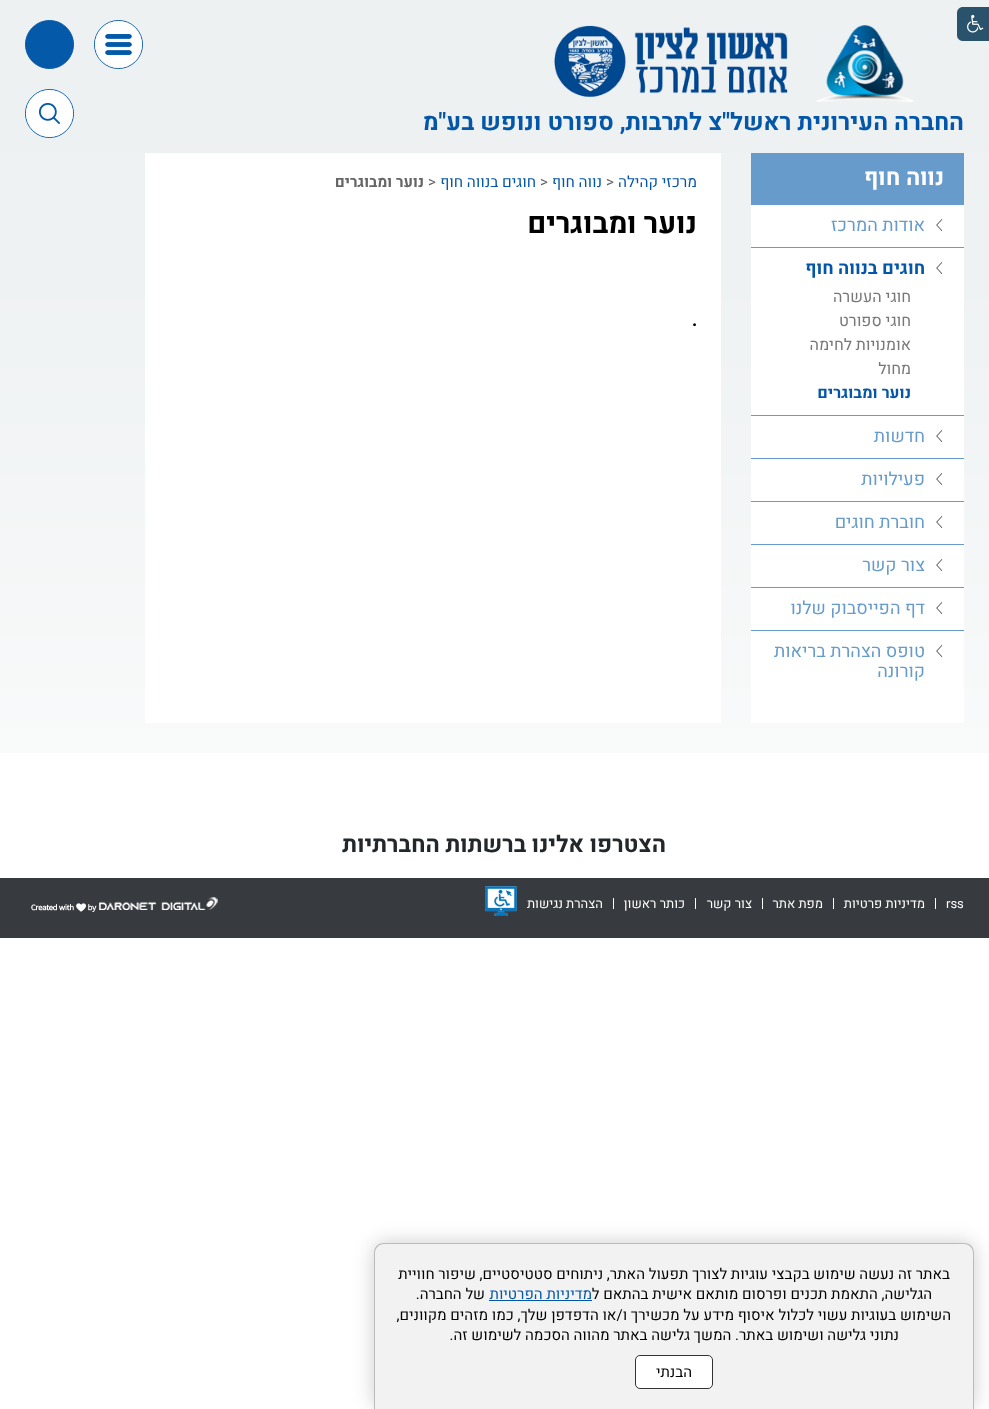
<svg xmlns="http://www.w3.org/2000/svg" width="989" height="1409">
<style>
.a{font:bold 24px Heebo;direction:rtl;fill:#0456a8}
.b{font:bold 23px Heebo;direction:rtl;fill:#fff}
.c{font:18px Heebo;direction:rtl;fill:#669bcb}
.d{font:bold 18px Heebo;direction:rtl;fill:#0456a8}
.e{font:16px Heebo;direction:rtl;fill:#777}
.f{font:bold 16px Heebo;direction:rtl;fill:#0456a8}
.g{font:15.25px Heebo;direction:rtl;fill:#0456a8}
.h{font:15.25px Heebo;fill:#666}
.i{font:bold 15.25px Heebo;direction:rtl;fill:#666}
.j{font:bold 29px Heebo;direction:rtl;fill:#000}
.k{font:bold 18px Heebo;fill:#000}
.l{font:bold 23px Heebo;direction:rtl;fill:#22272b}
.m{font:13px Heebo;fill:#fff}
.n{font:13px Heebo;direction:rtl;fill:#fff}
.o{font:15px Heebo;direction:rtl;fill:#000}
.p{font:15px Heebo;direction:rtl;fill:#0456a8}
</style>
<rect width="100%" height="100%" fill="#fff"/>
<path fill="#edf1f2" d="M0 0h989v153H0z"/>
<path fill="#29536c" d="M963 7h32v34h-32c-3.5 0-6-2.5-6-6v-22c0-3.5 2.5-6 6-6z"/>
<image href="1.png" x="967" y="14" width="17" height="19"/>
<circle fill="#0459a9" stroke="#0459a9" cx="49.5" cy="44.5" r="24"/>
<image href="2.png" x="816" y="25" width="98" height="77"/>
<image href="3.png" x="554" y="25" width="234" height="72"/>
<circle fill="none" stroke="#0459a9" cx="118.5" cy="44.5" r="24"/>
<circle fill="#fff" cx="118.5" cy="44.5" r="23.5"/>
<image href="4.png" x="105" y="34" width="27" height="21"/>
<circle fill="none" stroke="#0459a9" cx="49.5" cy="113.5" r="24"/>
<circle fill="#fff" cx="49.5" cy="113.5" r="23.5"/>
<image href="5.png" x="39" y="103" width="21" height="21"/>
<image href="6.png" x="0" y="153" width="989" height="600"/>
<path fill="#fff" d="M751 205h213v518H751z"/>
<path fill="#669bcb" d="M751 153h213v52H751z"/>
<path fill="#669bcb" d="M751 247h213v1H751z"/>
<image href="7.png" x="936" y="219" width="7" height="12"/>
<path fill="#669bcb" d="M751 415h213v1H751z"/>
<image href="7.png" x="936" y="262" width="7" height="12"/>
<path fill="#669bcb" d="M751 458h213v1H751z"/>
<image href="7.png" x="936" y="430" width="7" height="12"/>
<path fill="#669bcb" d="M751 501h213v1H751z"/>
<image href="7.png" x="936" y="473" width="7" height="12"/>
<path fill="#669bcb" d="M751 544h213v1H751z"/>
<image href="7.png" x="936" y="516" width="7" height="12"/>
<path fill="#669bcb" d="M751 587h213v1H751z"/>
<image href="7.png" x="936" y="559" width="7" height="12"/>
<path fill="#669bcb" d="M751 630h213v1H751z"/>
<image href="7.png" x="936" y="602" width="7" height="12"/>
<image href="7.png" x="936" y="645" width="7" height="12"/>
<path fill="#fff" d="M145 153h576v570H145z"/>
<path fill="#373a3f" d="M0 878h989v60H0z"/>
<path fill="#fff" d="M935 898h1v11H935z"/>
<path fill="#fff" d="M833 898h1v11H833z"/>
<path fill="#fff" d="M762 898h1v11H762z"/>
<path fill="#fff" d="M695 898h1v11H695z"/>
<path fill="#fff" d="M613 898h1v11H613z"/>
<image href="8.png" x="485" y="886" width="32" height="30"/>
<image href="9.png" x="31" y="897" width="187" height="15"/>
<rect fill="#00000033" filter="blur(10px)" x="374" y="1243" width="600" height="166" rx="10"/>
<path fill="#f2f2f2" d="M384 1243h580c5.5 0 10 4.5 10 10v156h-600v-156c0-5.5 4.5-10 10-10z"/>
<path fill="#bbb" fill-rule="evenodd" d="M384 1243h580c6 0 10 4 10 10v156h-600v-156c0-6 4-10 10-10zm0 1h580c5 0 9 4 9 9v156h-598v-156c0-5 4-9 9-9z"/>
<path fill="#0456a8" d="M489 1300h103v1H489z"/>
<rect fill="#fff" stroke="#333" x="635.5" y="1355.5" width="77" height="33" rx="4.5"/>
<text class="a" x="964" y="130">החברה העירונית ראשל"צ</text>
<text class="a" x="702" y="130">לתרבות, ספורט ונופש בע"מ</text>
<text class="b" x="944" y="185">נווה חוף</text>
<text class="c" x="925" y="231">אודות המרכז</text>
<text class="d" x="925" y="274">חוגים בנווה חוף</text>
<text class="e" x="911" y="302">חוגי העשרה</text>
<text class="e" x="911" y="326">חוגי ספורט</text>
<text class="e" x="911" y="350">אומנויות לחימה</text>
<text class="e" x="911" y="374">מחול</text>
<text class="f" x="911" y="398">נוער ומבוגרים</text>
<text class="c" x="925" y="442">חדשות</text>
<text class="c" x="925" y="485">פעילויות</text>
<text class="c" x="925" y="528">חוברת חוגים</text>
<text class="c" x="925" y="571">צור קשר</text>
<text class="c" x="925" y="614">דף הפייסבוק שלנו</text>
<text class="c" x="925" y="657">טופס הצהרת בריאות</text>
<text class="c" x="925" y="677">קורונה</text>
<text class="g" x="697" y="187">מרכזי קהילה</text>
<text class="h" x="606" y="187">&gt;</text>
<text class="g" x="602" y="187">נווה חוף</text>
<text class="h" x="540" y="187">&gt;</text>
<text class="g" x="536" y="187">חוגים בנווה חוף</text>
<text class="h" x="428" y="187">&gt;</text>
<text class="i" x="424" y="187">נוער ומבוגרים</text>
<text class="j" x="697" y="233">נוער ומבוגרים</text>
<text class="k" x="692" y="326">.</text>
<text class="l" x="666" y="852">הצטרפו אלינו ברשתות החברתיות</text>
<text class="m" x="946" y="908">rss</text>
<text class="n" x="925" y="908">מדיניות פרטיות</text>
<text class="n" x="823" y="908">מפת אתר</text>
<text class="n" x="752" y="908">צור קשר</text>
<text class="n" x="685" y="908">כותר ראשון</text>
<text class="n" x="603" y="908">הצהרת נגישות</text>
<text class="o" x="950" y="1279">באתר זה נעשה שימוש בקבצי עוגיות לצורך תפעול האתר, ניתוחים סטטיסטיים, שיפור חוויית</text>
<text class="o" x="932" y="1299">הגלישה, התאמת תכנים ופרסום מותאם אישית בהתאם ל</text>
<text class="p" x="592" y="1299">מדיניות הפרטיות</text>
<text class="o" x="485" y="1299">של החברה.</text>
<text class="o" x="951" y="1320">השימוש בעוגיות עשוי לכלול איסוף מידע על מכשירך ו/או הדפדפן שלך, כמו מזהים מקוונים,</text>
<text class="o" x="899" y="1340">נתוני גלישה ושימוש באתר. המשך</text>
<text class="o" x="690" y="1340">גלישה באתר מהווה הסכמה לשימוש זה.</text>
<text class="o" x="692" y="1377">הבנתי</text>
</svg>
